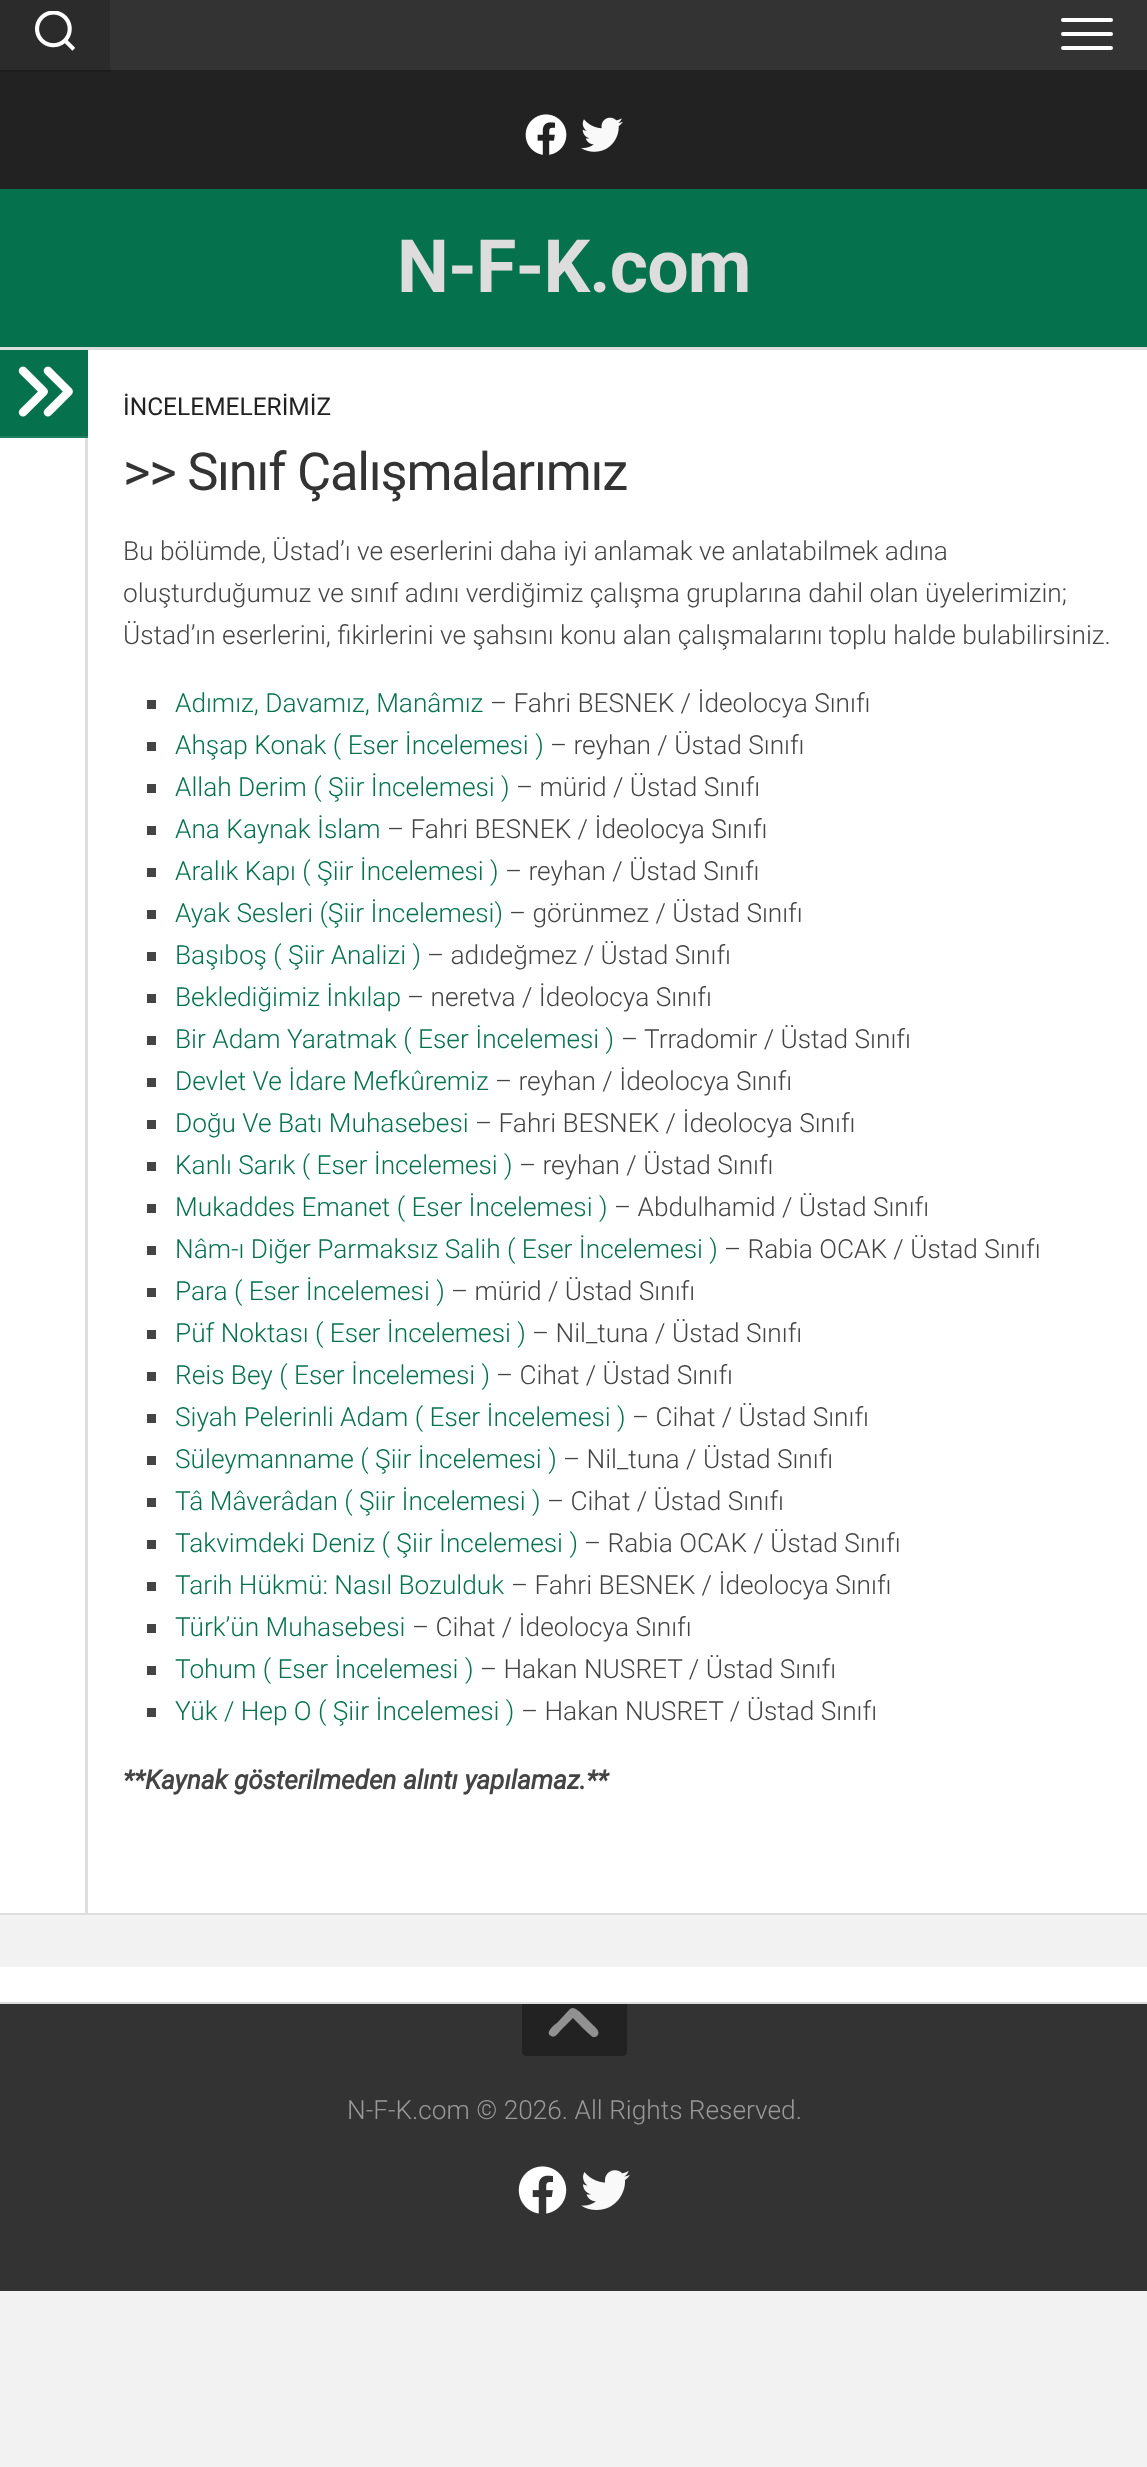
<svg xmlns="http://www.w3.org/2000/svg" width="1147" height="2467">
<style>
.a{font:bold 73.5px Roboto;letter-spacing:-0.9px;fill:#ddd}
.b{font:24.5px Roboto;fill:#222}
.c{font:52.5px Roboto;letter-spacing:-1.25px;fill:#333}
.d{font:300 26.25px Roboto;fill:#444}
.e{font:300 26.25px Roboto;fill:#06724d}
.f{font:italic bold 26.25px Roboto;fill:#444}
.g{font:300 26.25px Roboto;fill:#999}
</style>
<rect width="100%" height="100%" fill="#f2f2f2"/>
<path fill="#222" d="M0 70h1147v119H0z"/>
<path fill="#1d1d1d" d="M0 70h110v2H0z"/>
<path fill="#333" d="M110 0h1037v70H110z"/>
<path fill="#2b2b2b" d="M0 0h110v70H0z"/>
<rect fill="#fff" x="1061" y="18" width="52" height="4" rx="2"/>
<rect fill="#fff" x="1061" y="32" width="52" height="4" rx="2"/>
<rect fill="#fff" x="1061" y="46" width="52" height="4" rx="2"/>
<image href="1.png" x="35" y="11" width="40" height="40"/>
<image href="2.png" x="525" y="114" width="42" height="41"/>
<image href="3.png" x="581" y="117" width="42" height="35"/>
<path fill="#06724d" d="M0 189h1147v158H0z"/>
<path fill="#ddd" d="M0 347h1147v3H0z"/>
<path fill="#fff" d="M0 350h1147v1563H0z"/>
<path fill="#ddd" d="M0 1913h1147v2H0z"/>
<path fill="#dfdfdf" d="M85 438h3v1475H85z"/>
<path fill="#06724d" d="M0 350h88v86H0z"/>
<path fill="#1f805f" d="M0 436h88v2H0z"/>
<image href="4.png" x="18" y="366" width="55" height="51"/>
<path fill="#444" d="M147 700h9v9H147z"/>
<path fill="#444" d="M147 742h9v9H147z"/>
<path fill="#444" d="M147 784h9v9H147z"/>
<path fill="#444" d="M147 826h9v9H147z"/>
<path fill="#444" d="M147 868h9v9H147z"/>
<path fill="#444" d="M147 910h9v9H147z"/>
<path fill="#444" d="M147 952h9v9H147z"/>
<path fill="#444" d="M147 994h9v9H147z"/>
<path fill="#444" d="M147 1036h9v9H147z"/>
<path fill="#444" d="M147 1078h9v9H147z"/>
<path fill="#444" d="M147 1120h9v9H147z"/>
<path fill="#444" d="M147 1162h9v9H147z"/>
<path fill="#444" d="M147 1204h9v9H147z"/>
<path fill="#444" d="M147 1246h9v9H147z"/>
<path fill="#444" d="M147 1288h9v9H147z"/>
<path fill="#444" d="M147 1330h9v9H147z"/>
<path fill="#444" d="M147 1372h9v9H147z"/>
<path fill="#444" d="M147 1414h9v9H147z"/>
<path fill="#444" d="M147 1456h9v9H147z"/>
<path fill="#444" d="M147 1498h9v9H147z"/>
<path fill="#444" d="M147 1540h9v9H147z"/>
<path fill="#444" d="M147 1582h9v9H147z"/>
<path fill="#444" d="M147 1624h9v9H147z"/>
<path fill="#444" d="M147 1666h9v9H147z"/>
<path fill="#444" d="M147 1708h9v9H147z"/>
<path fill="#fff" d="M0 1967h1147v35H0z"/>
<path fill="#ddd" d="M0 2002h1147v2H0z"/>
<path fill="#333" d="M0 2004h1147v287H0z"/>
<path fill="#222" d="M522 2004h105v47c0 3-2 5-5 5h-95c-3 0-5-2-5-5z"/>
<path fill="#919191" d="M570 2009c4-3 7 1 10 3l14 14c2 2 7 6 3 10c-1 1-2 1-4 1c-3-1-17-16-20-19l-12 12c-2 2-6 9-10 6c-7-3 4-12 6-13z"/>
<image href="5.png" x="518" y="2166" width="49" height="48"/>
<image href="6.png" x="581" y="2170" width="49" height="40"/>
<text class="a" x="397" y="292">N-F-K.com</text>
<text class="b" x="123" y="415">İNCELEMELERİMİZ</text>
<text class="c" x="123" y="490">&gt;&gt; Sınıf Çalışmalarımız</text>
<text class="d" x="123" y="560">Bu bölümde, Üstad’ı ve eserlerini daha iyi anlamak ve anlatabilmek adına</text>
<text class="d" x="123" y="602">oluşturduğumuz ve sınıf adını verdiğimiz çalışma gruplarına dahil olan üyelerimizin;</text>
<text class="d" x="123" y="644">Üstad’ın eserlerini, fikirlerini ve şahsını konu alan çalışmalarını toplu halde bulabilirsiniz.</text>
<text class="e" x="175" y="712">Adımız, Davamız, Manâmız</text>
<text class="d" x="490" y="712">– Fahri BESNEK / İdeolocya Sınıfı</text>
<text class="e" x="175" y="754">Ahşap Konak ( Eser İncelemesi )</text>
<text class="d" x="550" y="754">– reyhan / Üstad Sınıfı</text>
<text class="e" x="175" y="796">Allah Derim ( Şiir İncelemesi )</text>
<text class="d" x="516" y="796">– mürid / Üstad Sınıfı</text>
<text class="e" x="175" y="838">Ana Kaynak İslam</text>
<text class="d" x="387" y="838">– Fahri BESNEK / İdeolocya Sınıfı</text>
<text class="e" x="175" y="880">Aralık Kapı ( Şiir İncelemesi )</text>
<text class="d" x="505" y="880">– reyhan / Üstad Sınıfı</text>
<text class="e" x="175" y="922">Ayak Sesleri (Şiir İncelemesi)</text>
<text class="d" x="509" y="922">– görünmez / Üstad Sınıfı</text>
<text class="e" x="175" y="964">Başıboş ( Şiir Analizi )</text>
<text class="d" x="427" y="964">– adıdeğmez / Üstad Sınıfı</text>
<text class="e" x="175" y="1006">Beklediğimiz İnkılap</text>
<text class="d" x="407" y="1006">– neretva / İdeolocya Sınıfı</text>
<text class="e" x="175" y="1048">Bir Adam Yaratmak ( Eser İncelemesi )</text>
<text class="d" x="621" y="1048">– Trradomir / Üstad Sınıfı</text>
<text class="e" x="175" y="1090">Devlet Ve İdare Mefkûremiz</text>
<text class="d" x="495" y="1090">– reyhan / İdeolocya Sınıfı</text>
<text class="e" x="175" y="1132">Doğu Ve Batı Muhasebesi</text>
<text class="d" x="475" y="1132">– Fahri BESNEK / İdeolocya Sınıfı</text>
<text class="e" x="175" y="1174">Kanlı Sarık ( Eser İncelemesi )</text>
<text class="d" x="519" y="1174">– reyhan / Üstad Sınıfı</text>
<text class="e" x="175" y="1216">Mukaddes Emanet ( Eser İncelemesi )</text>
<text class="d" x="614" y="1216">– Abdulhamid / Üstad Sınıfı</text>
<text class="e" x="175" y="1258">Nâm-ı Diğer Parmaksız Salih ( Eser İncelemesi )</text>
<text class="d" x="724" y="1258">– Rabia OCAK / Üstad Sınıfı</text>
<text class="e" x="175" y="1300">Para ( Eser İncelemesi )</text>
<text class="d" x="451" y="1300">– mürid / Üstad Sınıfı</text>
<text class="e" x="175" y="1342">Püf Noktası ( Eser İncelemesi )</text>
<text class="d" x="532" y="1342">– Nil_tuna / Üstad Sınıfı</text>
<text class="e" x="175" y="1384">Reis Bey ( Eser İncelemesi )</text>
<text class="d" x="496" y="1384">– Cihat / Üstad Sınıfı</text>
<text class="e" x="175" y="1426">Siyah Pelerinli Adam ( Eser İncelemesi )</text>
<text class="d" x="632" y="1426">– Cihat / Üstad Sınıfı</text>
<text class="e" x="175" y="1468">Süleymanname ( Şiir İncelemesi )</text>
<text class="d" x="563" y="1468">– Nil_tuna / Üstad Sınıfı</text>
<text class="e" x="175" y="1510">Tâ Mâverâdan ( Şiir İncelemesi )</text>
<text class="d" x="547" y="1510">– Cihat / Üstad Sınıfı</text>
<text class="e" x="175" y="1552">Takvimdeki Deniz ( Şiir İncelemesi )</text>
<text class="d" x="584" y="1552">– Rabia OCAK / Üstad Sınıfı</text>
<text class="e" x="175" y="1594">Tarih Hükmü: Nasıl Bozulduk</text>
<text class="d" x="511" y="1594">– Fahri BESNEK / İdeolocya Sınıfı</text>
<text class="e" x="175" y="1636">Türk’ün Muhasebesi</text>
<text class="d" x="412" y="1636">– Cihat / İdeolocya Sınıfı</text>
<text class="e" x="175" y="1678">Tohum ( Eser İncelemesi )</text>
<text class="d" x="480" y="1678">– Hakan NUSRET / Üstad Sınıfı</text>
<text class="e" x="175" y="1720">Yük / Hep O ( Şiir İncelemesi )</text>
<text class="d" x="521" y="1720">– Hakan NUSRET / Üstad Sınıfı</text>
<text class="f" x="123" y="1789">**Kaynak gösterilmeden alıntı yapılamaz.**</text>
<text class="g" x="347" y="2119">N-F-K.com © 2026. All Rights Reserved.</text>
</svg>
